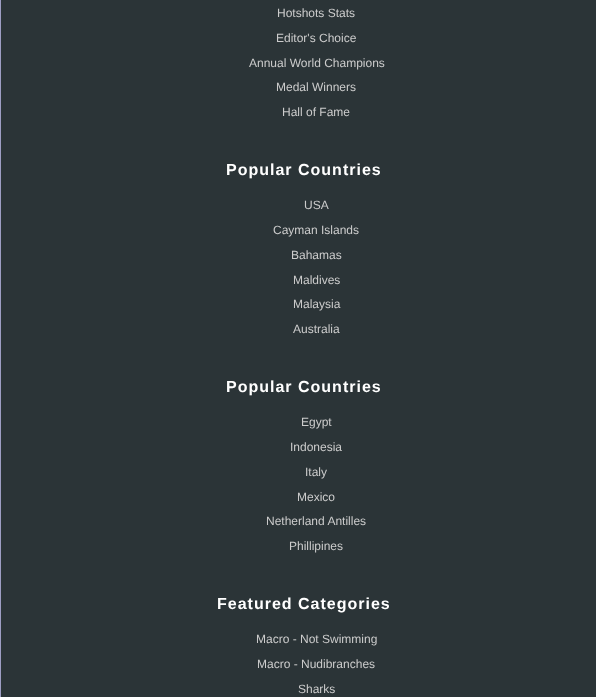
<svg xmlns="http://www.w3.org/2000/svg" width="596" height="697">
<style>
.a{font:12px Liberation Sans;fill:#ccc}
.b{font:bold 16px Liberation Sans;letter-spacing:1px;fill:#fff}
</style>
<rect width="100%" height="100%" fill="#9e9ec3"/>
<path fill="#2b3437" d="M1 0h595v697H1z"/>
<text class="a" x="277" y="17">Hotshots Stats</text>
<text class="a" x="276" y="42">Editor's Choice</text>
<text class="a" x="249" y="67">Annual World Champions</text>
<text class="a" x="276" y="91">Medal Winners</text>
<text class="a" x="282" y="116">Hall of Fame</text>
<text class="b" x="226" y="175">Popular Countries</text>
<text class="a" x="304" y="209">USA</text>
<text class="a" x="273" y="234">Cayman Islands</text>
<text class="a" x="291" y="259">Bahamas</text>
<text class="a" x="293" y="284">Maldives</text>
<text class="a" x="293" y="308">Malaysia</text>
<text class="a" x="293" y="333">Australia</text>
<text class="b" x="226" y="392">Popular Countries</text>
<text class="a" x="301" y="426">Egypt</text>
<text class="a" x="290" y="451">Indonesia</text>
<text class="a" x="305" y="476">Italy</text>
<text class="a" x="297" y="501">Mexico</text>
<text class="a" x="266" y="525">Netherland Antilles</text>
<text class="a" x="289" y="550">Phillipines</text>
<text class="b" x="217" y="609">Featured Categories</text>
<text class="a" x="256" y="643">Macro - Not Swimming</text>
<text class="a" x="257" y="668">Macro - Nudibranches</text>
<text class="a" x="298" y="693">Sharks</text>
</svg>
